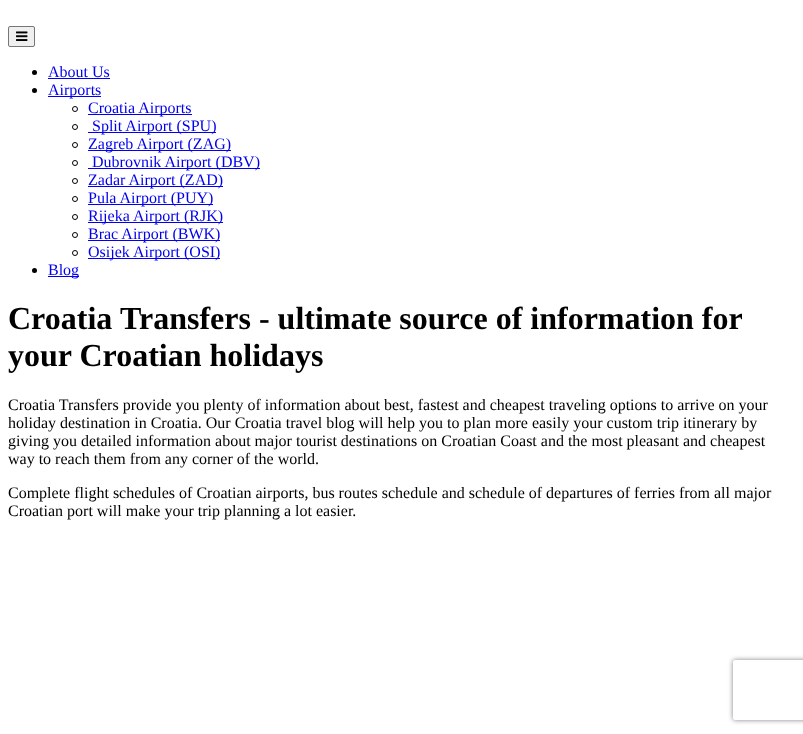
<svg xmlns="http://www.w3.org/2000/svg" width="803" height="734">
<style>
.a{font:16px Liberation Serif;fill:#00e}
.b{font:bold 32px Liberation Serif;fill:#000}
.c{font:16px Liberation Serif;fill:#000}
</style>
<defs>
<clipPath id="clip1"><path d="M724 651h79v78h-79zm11 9h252c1 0 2 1 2 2v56c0 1-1 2-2 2h-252c-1 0-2-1-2-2v-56c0-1 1-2 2-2z" clip-rule="evenodd"/></clipPath>
</defs>
<rect width="100%" height="100%" fill="#fff"/>
<rect fill="#efefef" stroke="#767676" x="8.5" y="26.5" width="26" height="20" rx="1.5"/>
<image href="1.png" x="16" y="31" width="12" height="10"/>
<circle fill="#000" cx="34.5" cy="72.5" r="2.5"/>
<path fill="#00e" d="M48 78h62v1H48z"/>
<circle fill="#000" cx="34.5" cy="90.5" r="2.5"/>
<path fill="#00e" d="M48 96h53v1H48z"/>
<circle fill="none" stroke="#000" cx="75" cy="109" r="2.5"/>
<path fill="#00e" d="M88 114h104v1H88z"/>
<circle fill="none" stroke="#000" cx="75" cy="127" r="2.5"/>
<path fill="#00e" d="M88 132h128v1H88z"/>
<circle fill="none" stroke="#000" cx="75" cy="145" r="2.5"/>
<path fill="#00e" d="M88 150h143v1H88z"/>
<circle fill="none" stroke="#000" cx="75" cy="163" r="2.5"/>
<path fill="#00e" d="M88 168h172v1H88z"/>
<circle fill="none" stroke="#000" cx="75" cy="181" r="2.5"/>
<path fill="#00e" d="M88 186h135v1H88z"/>
<circle fill="none" stroke="#000" cx="75" cy="199" r="2.5"/>
<path fill="#00e" d="M88 204h125v1H88z"/>
<circle fill="none" stroke="#000" cx="75" cy="217" r="2.5"/>
<path fill="#00e" d="M88 222h135v1H88z"/>
<circle fill="none" stroke="#000" cx="75" cy="235" r="2.5"/>
<path fill="#00e" d="M88 240h132v1H88z"/>
<circle fill="none" stroke="#000" cx="75" cy="253" r="2.5"/>
<path fill="#00e" d="M88 258h132v1H88z"/>
<circle fill="#000" cx="34.5" cy="270.5" r="2.5"/>
<path fill="#00e" d="M48 276h31v1H48z"/>
<g clip-path="url(#clip1)">
<rect fill="#808080" filter="blur(2.5px)" x="733" y="660" width="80" height="60" rx="2"/>
</g>
<text class="a" x="48" y="77">About Us</text>
<text class="a" x="48" y="95">Airports</text>
<text class="a" x="88" y="113">Croatia Airports</text>
<text class="a" x="92" y="131">Split Airport (SPU)</text>
<text class="a" x="88" y="149">Zagreb Airport (ZAG)</text>
<text class="a" x="92" y="167">Dubrovnik Airport (DBV)</text>
<text class="a" x="88" y="185">Zadar Airport (ZAD)</text>
<text class="a" x="88" y="203">Pula Airport (PUY)</text>
<text class="a" x="88" y="221">Rijeka Airport (RJK)</text>
<text class="a" x="88" y="239">Brac Airport (BWK)</text>
<text class="a" x="88" y="257">Osijek Airport (OSI)</text>
<text class="a" x="48" y="275">Blog</text>
<text class="b" x="8" y="329">Croatia</text>
<text class="b" x="120" y="329">Transfers - ultimate source of information for</text>
<text class="b" x="8" y="366">your Croatian holidays</text>
<text class="c" x="8" y="410">Croatia Transfers provide you plenty of information about best, fastest and cheapest traveling options to arrive on your</text>
<text class="c" x="8" y="428">holiday destination in Croatia. Our Croatia travel blog will help you to plan more easily your custom trip itinerary by</text>
<text class="c" x="8" y="446">giving you detailed information about major tourist destinations on Croatian Coast and the most pleasant and cheapest</text>
<text class="c" x="8" y="464">way to reach them from any corner of the world.</text>
<text class="c" x="8" y="498">Complete flight schedules of Croatian airports, bus routes schedule and schedule of departures of ferries from all major</text>
<text class="c" x="8" y="516">Croatian port will make your trip planning a lot easier.</text>
</svg>
